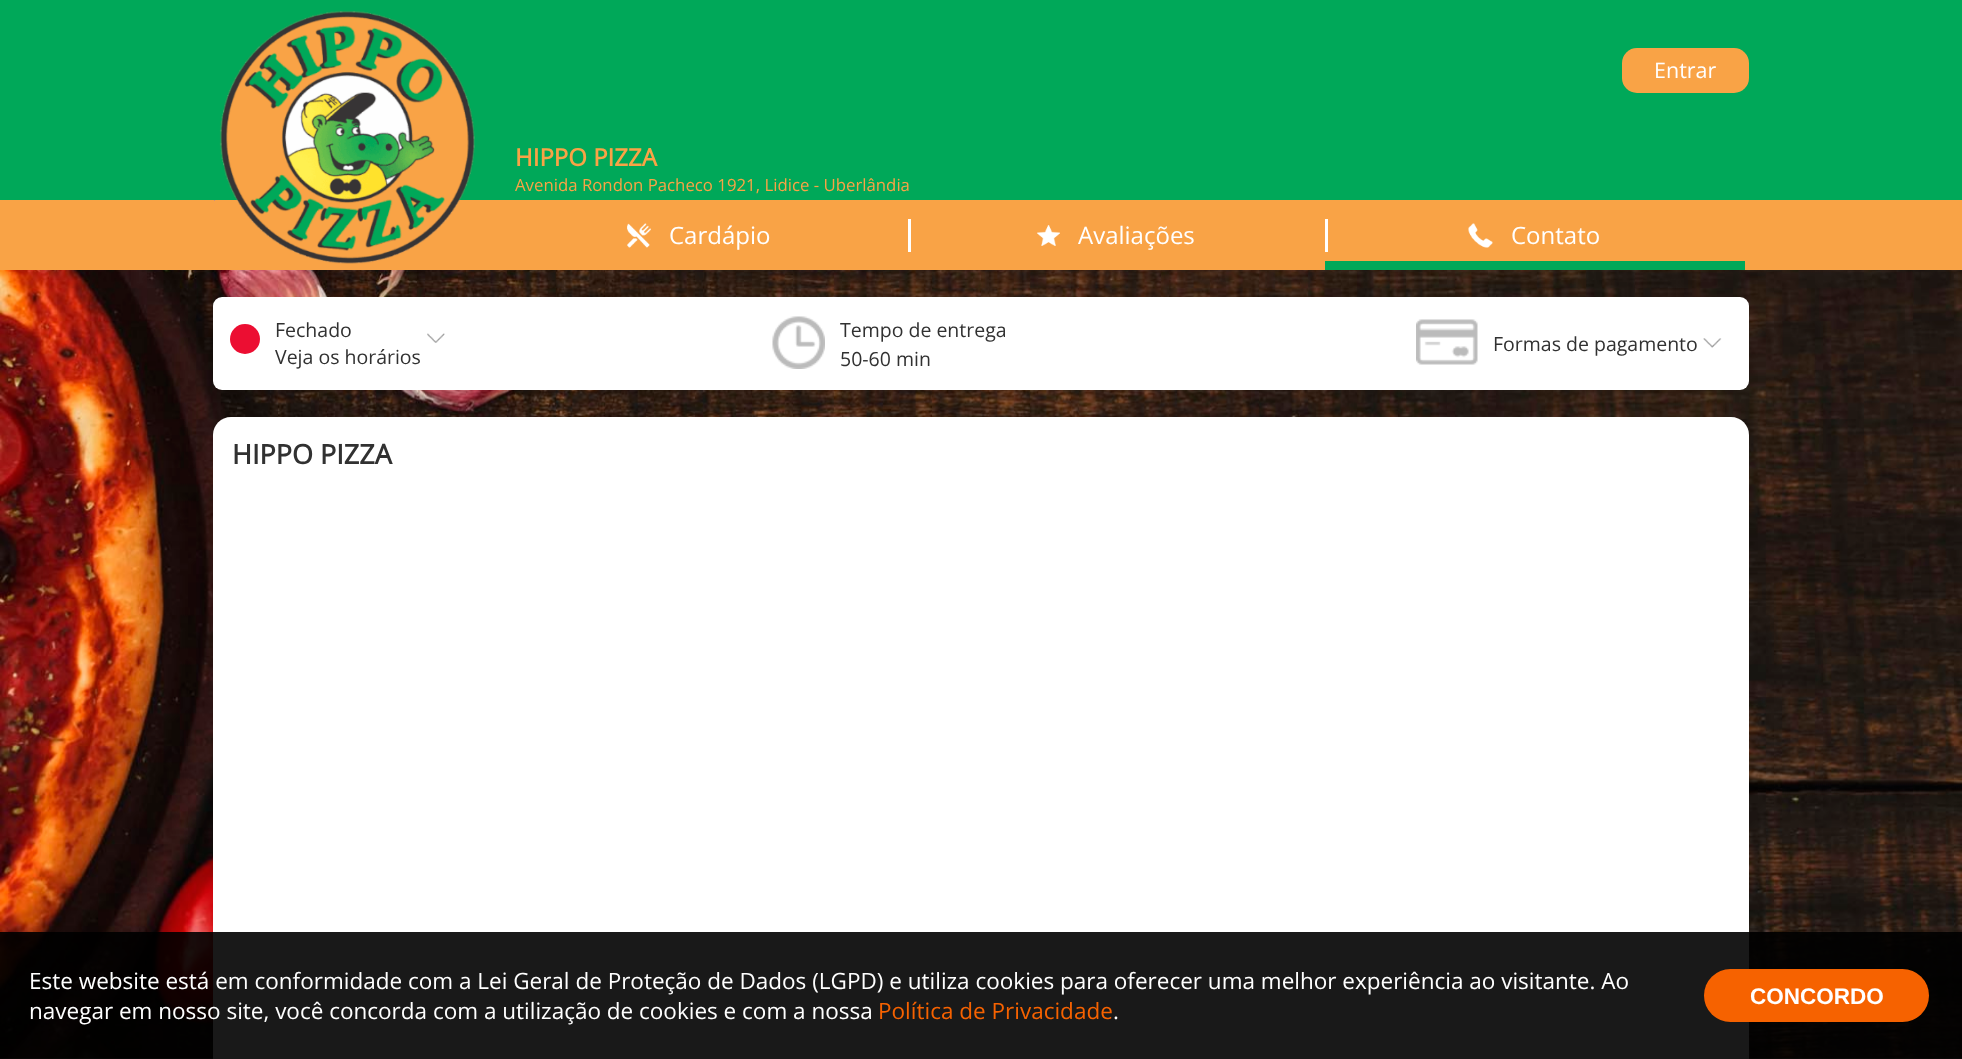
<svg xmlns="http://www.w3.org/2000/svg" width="1962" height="1059">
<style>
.a{font:21.5px Open Sans;fill:#fff}
.b{font:bold 24px Open Sans;fill:#f9a346}
.c{font:16.8px Open Sans;fill:#f9a346}
.d{font:24px Open Sans;fill:#fff}
.e{font:19.5px Open Sans;fill:#313131}
.f{font:bold 27px Open Sans;fill:#313131}
.g{font:22.5px Open Sans;fill:#fff}
.h{font:22.5px Open Sans;fill:#f66200}
.i{font:bold 22.5px Liberation Sans;fill:#fff}
</style>
<rect width="100%" height="100%" fill="#fff"/>
<path fill="#00a859" d="M0 0h1962v200H0z"/>
<path fill="#f9a346" d="M0 200h1962v70H0z"/>
<image href="1.png" x="213" y="0" width="270" height="264"/>
<rect fill="#f9a346" x="1622" y="48" width="127" height="45" rx="15"/>
<path fill="#fff" d="M908 219h3v33H908z"/>
<image href="2.png" x="627" y="223" width="24" height="25"/>
<path fill="#fff" d="M1325 219h3v33H1325z"/>
<image href="3.png" x="1037" y="225" width="23" height="21"/>
<path fill="#00a859" d="M1325 261h420v9H1325z"/>
<image href="4.png" x="1468" y="223" width="25" height="25"/>
<image href="5.png" x="0" y="270" width="1962" height="789"/>
<rect fill="#fff" x="213" y="297" width="1536" height="93" rx="9"/>
<circle fill="#ec0e32" cx="245" cy="339" r="15"/>
<image href="6.png" x="427" y="333" width="18" height="10"/>
<image href="7.png" x="772" y="316" width="53" height="53"/>
<image href="8.png" x="1416" y="319" width="62" height="46"/>
<image href="9.png" x="1703" y="338" width="19" height="10"/>
<path fill="#fff" d="M231 417h1500c10 0 18 8 18 18v624h-1536v-624c0-10 8-18 18-18z"/>
<path fill="#000000e6" d="M0 932h1962v127H0z"/>
<rect fill="#f66200" x="1704" y="969" width="225" height="53" rx="26.5"/>
<text class="a" x="1654" y="78">Entrar</text>
<text class="b" x="515" y="166">HIPPO PIZZA</text>
<text class="c" x="515" y="191">Avenida Rondon Pacheco 1921, Lidice - Uberlândia</text>
<text class="d" x="669" y="244">Cardápio</text>
<text class="d" x="1078" y="244">Avaliações</text>
<text class="d" x="1511" y="244">Contato</text>
<text class="e" x="275" y="337">Fechado</text>
<text class="e" x="275" y="364">Veja os horários</text>
<text class="e" x="840" y="337">Tempo de entrega</text>
<text class="e" x="840" y="366">50-60 min</text>
<text class="e" x="1493" y="351">Formas de pagamento</text>
<text class="f" x="232" y="464">HIPPO PIZZA</text>
<text class="g" x="29" y="989">Este website está em conformidade com a Lei Geral de Proteção de Dados (LGPD) e utiliza cookies para oferecer uma melhor experiência ao visitante. Ao</text>
<text class="g" x="29" y="1019">navegar em nosso site, você concorda com a utilização de cookies e com a nossa</text>
<text class="h" x="878" y="1019">Política de Privacidade</text>
<text class="g" x="1113" y="1019">.</text>
<text class="i" x="1750" y="1004">CONCORDO</text>
</svg>
